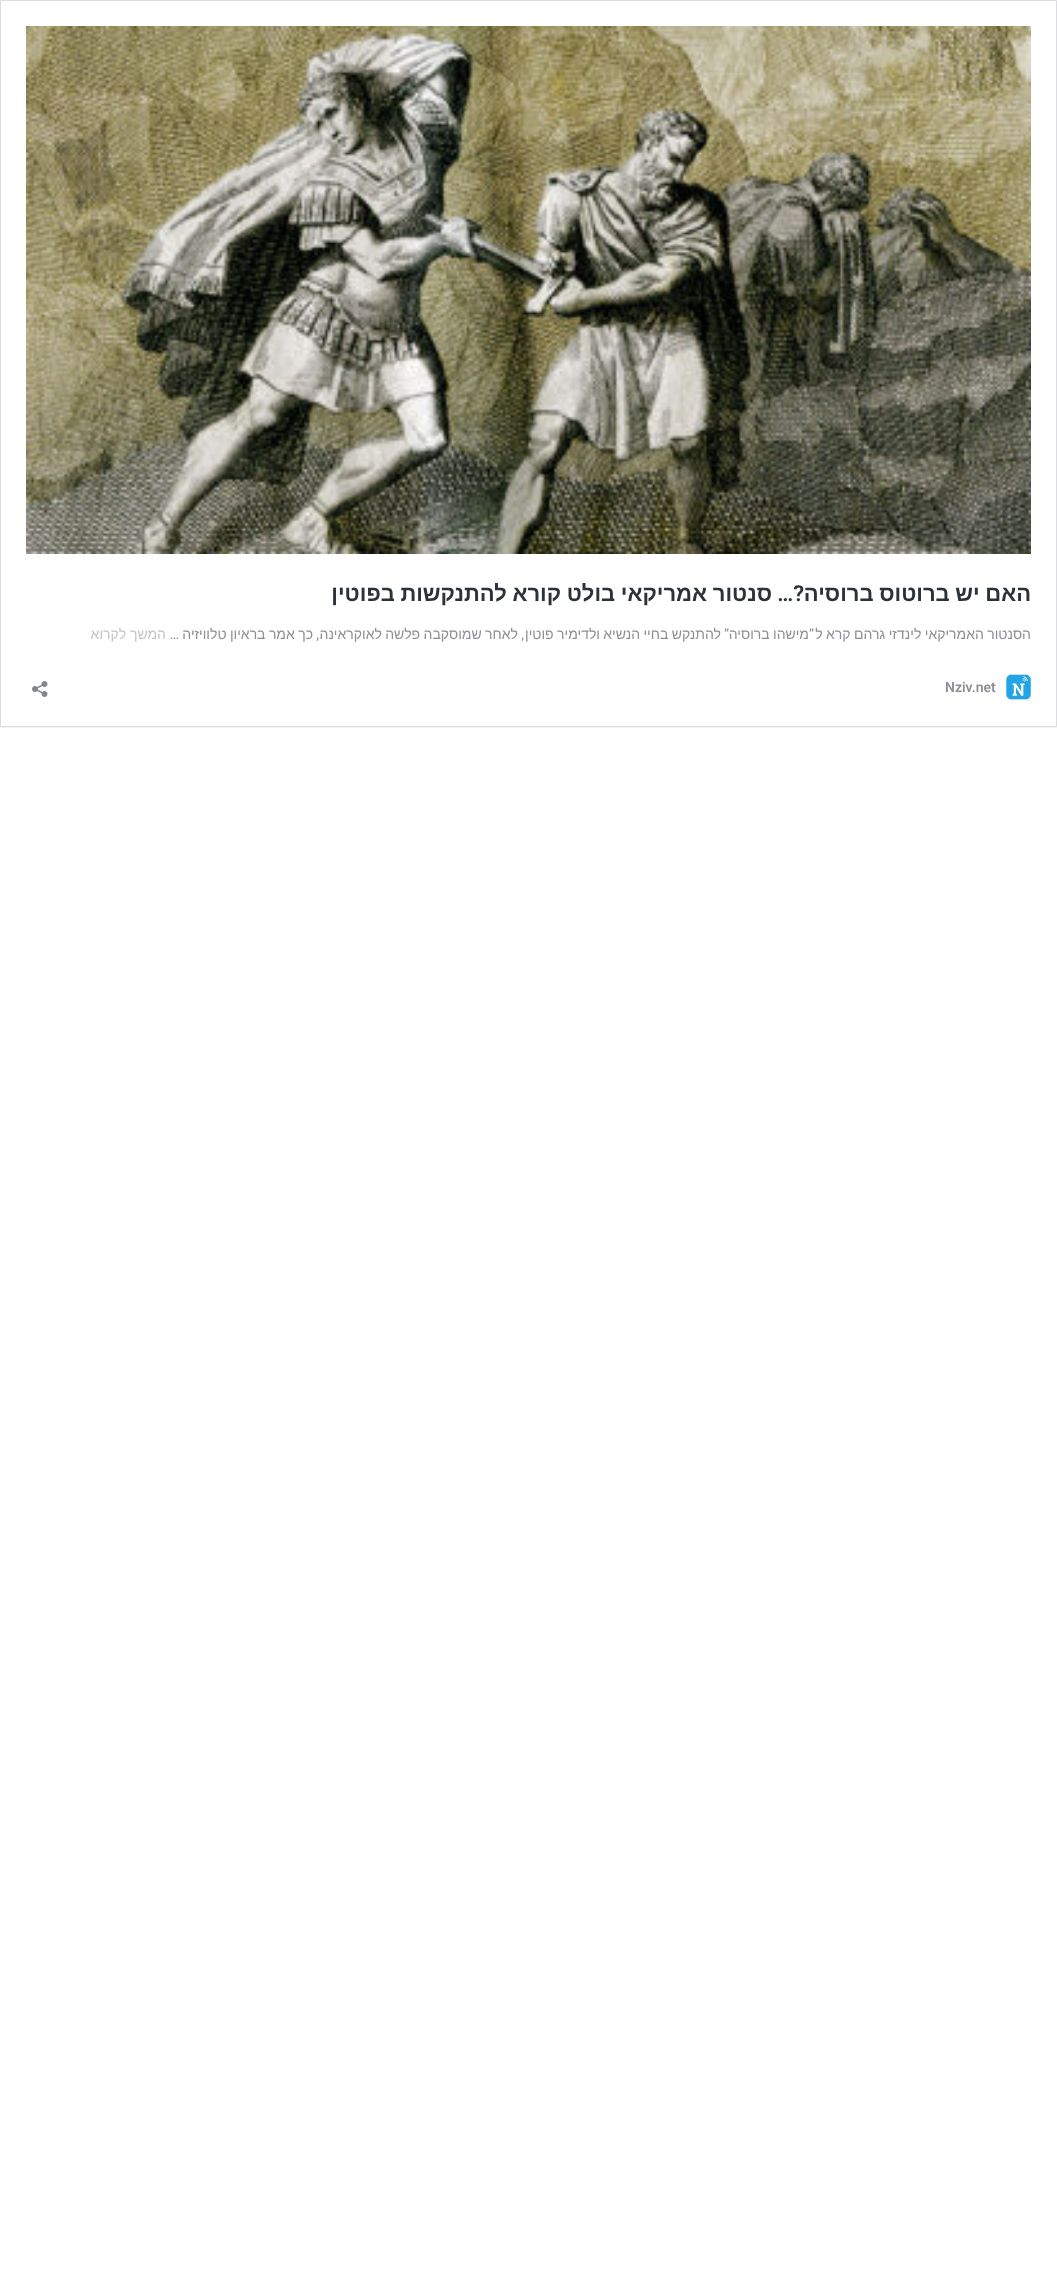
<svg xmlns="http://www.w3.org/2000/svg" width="1057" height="2290">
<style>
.a{font:bold 22px Liberation Sans;direction:rtl;fill:#2c3338}
.b{font:600 22px Roboto;direction:rtl;fill:#2c3338}
.c{font:14px Liberation Sans;direction:rtl;fill:#8c8f94}
.d{font:14px Roboto;direction:rtl;fill:#8c8f94}
.e{font:14px Liberation Sans;direction:rtl;fill:#c3c4c7}
.f{font:600 14px Roboto;fill:#8c8f94}
</style>
<defs>
<clipPath id="clip1"><path d="M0 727h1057v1H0z"/></clipPath>
</defs>
<rect width="100%" height="100%" fill="#fff"/>
<g clip-path="url(#clip1)">
<path fill="#0000000d" filter="blur(0.5px)" d="M0 1h1057v727H0z"/>
</g>
<path fill="none" stroke="#dcdcde" d="M0.5 0.5h1056v726H0.5z"/>
<image href="1.png" x="26" y="26" width="1005" height="528"/>
<image href="2.png" x="1006" y="674" width="25" height="26"/>
<image href="3.png" x="32" y="681" width="16" height="16"/>
<text class="a" x="1031" y="601" word-spacing="-0.5">האם יש ברוטוס ברוסיה</text>
<text class="b" x="804" y="601">?…</text>
<text class="a" x="772" y="601" word-spacing="-0.5">סנטור אמריקאי בולט קורא להתנקשות בפוטין</text>
<text class="c" x="1031" y="639" word-spacing="-0.5">הסנטור האמריקאי לינדזי גרהם קרא ל</text>
<text class="d" x="814" y="639">”</text>
<text class="c" x="809" y="639" word-spacing="-0.5">מישהו ברוסיה</text>
<text class="d" x="729" y="639">”</text>
<text class="c" x="721" y="639" word-spacing="-0.5">להתנקש בחיי הנשיא ולדימיר פוטין</text>
<text class="d" x="524" y="639">,</text>
<text class="c" x="518" y="639" word-spacing="-0.5">לאחר שמוסקבה פלשה לאוקראינה</text>
<text class="d" x="319" y="639">,</text>
<text class="c" x="313" y="639" word-spacing="-0.5">כך אמר בראיון טלוויזיה</text>
<text class="d" x="179" y="639">…</text>
<text class="e" x="166" y="639">המשך לקרוא</text>
<text class="f" x="945" y="692">Nziv.net</text>
</svg>
